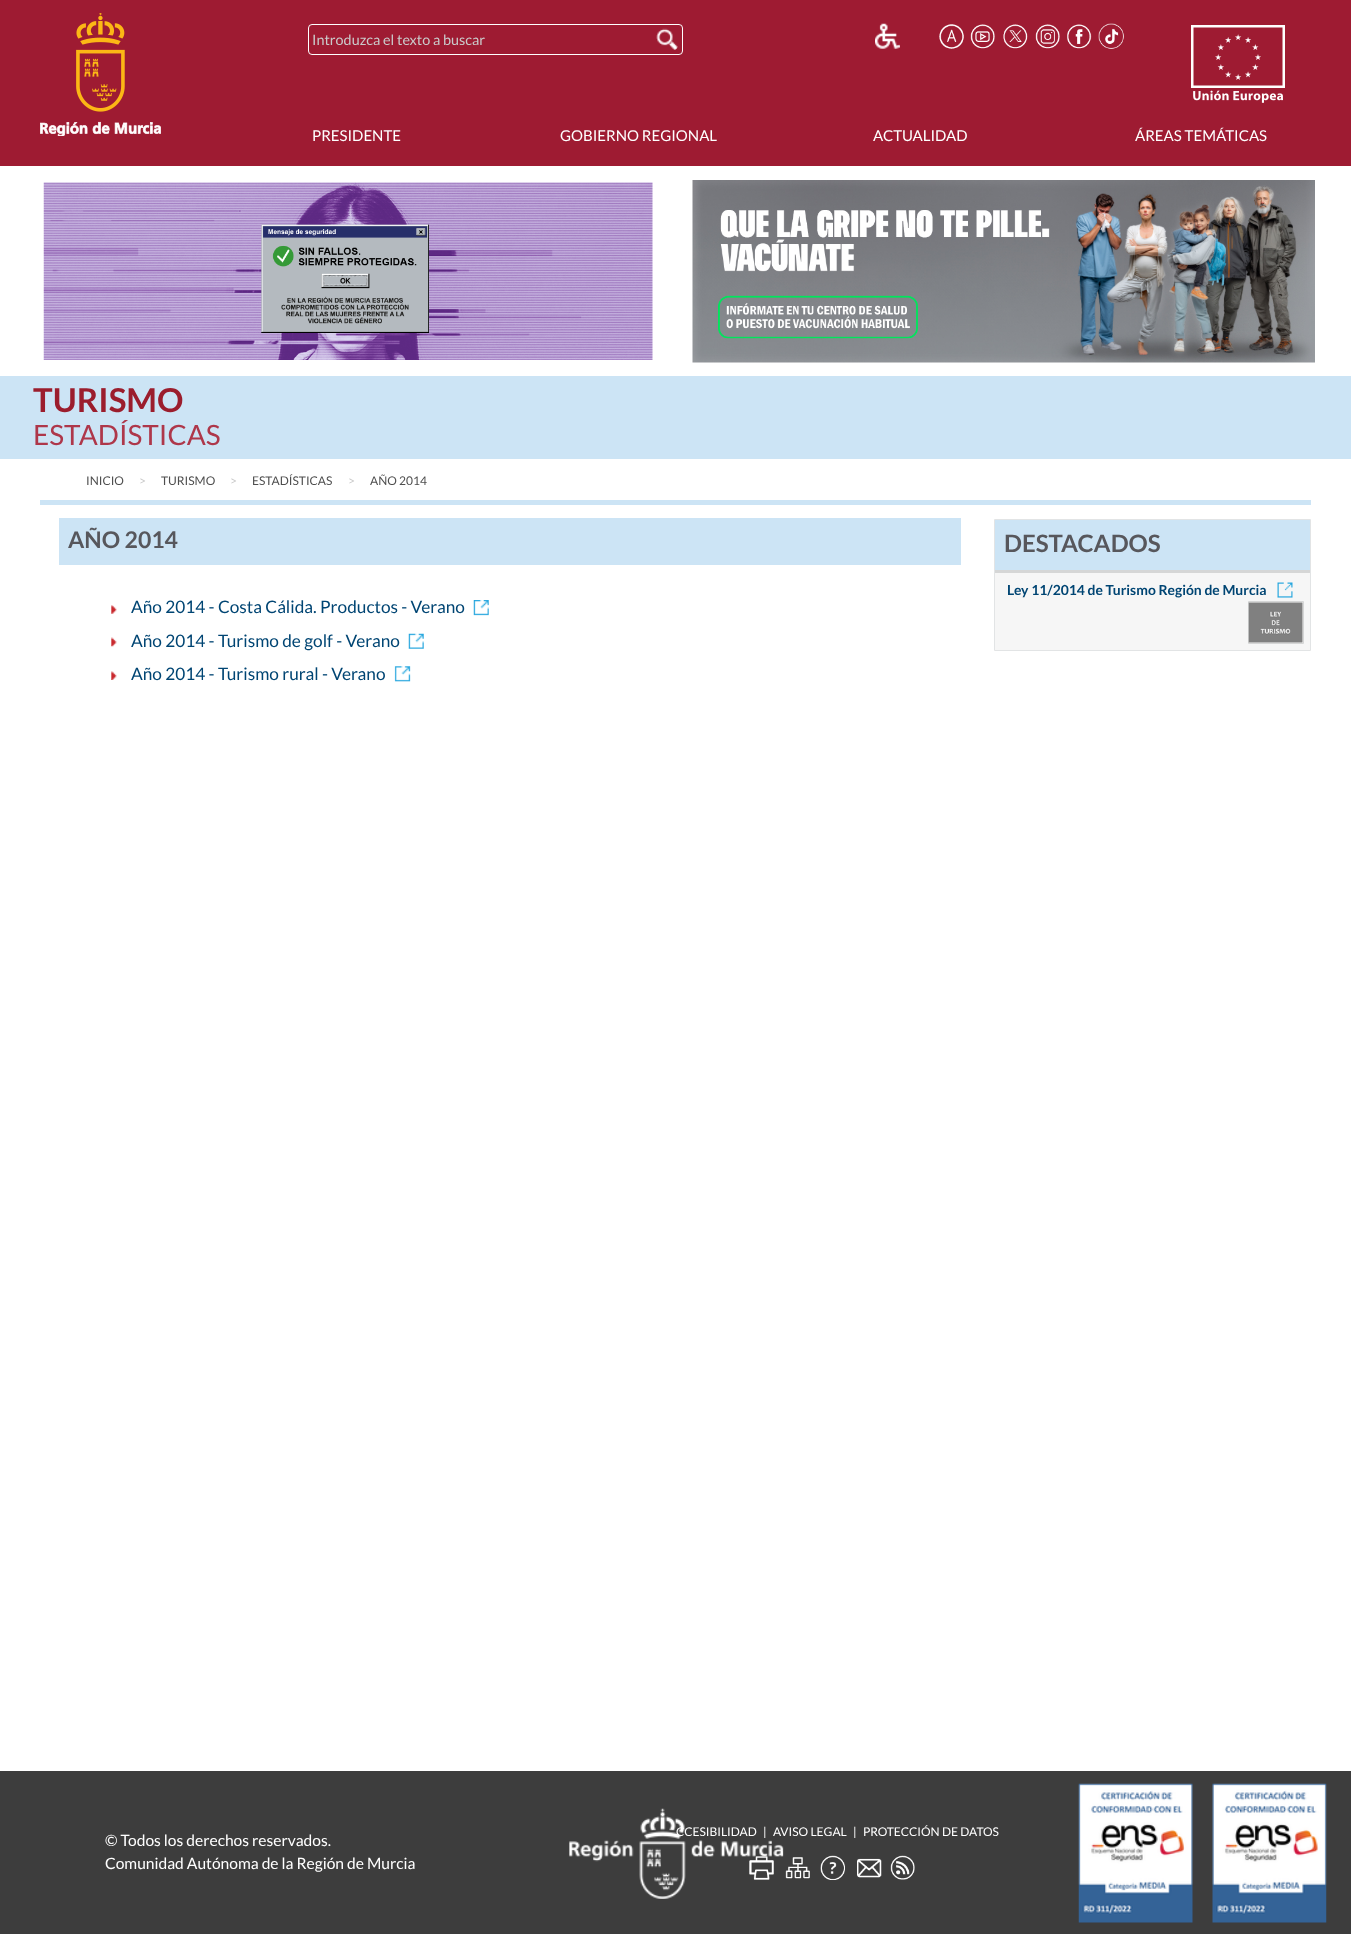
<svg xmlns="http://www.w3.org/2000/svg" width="1351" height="1934">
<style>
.a{font:14.4px Lato;fill:#cacaca}
.b{font:15px Lato;fill:#fff}
.c{font:bold 33px Lato;fill:#9b1d2d}
.d{font:28px Lato;fill:#ae374a}
.e{font:12px Lato;fill:#4e4e4e}
.f{font:12px Lato;fill:#cacaca}
.g{font:bold 23px Lato;fill:#57575c}
.h{font:17.25px Lato;fill:#004573}
.i{font:bold 24px Lato;fill:#57575c}
.j{font:bold 13.9px Lato;fill:#004573}
.k{font:12px Lato;fill:#fff}
.l{font:15.6px Lato;fill:#fff}
</style>
<rect width="100%" height="100%" fill="#fff"/>
<path fill="#9e1b32" d="M0 0h1351v166H0z"/>
<image href="1.png" x="40" y="13" width="121" height="123"/>
<rect fill="none" stroke="#fff" x="308.5" y="24.5" width="374" height="30" rx="3.5"/>
<image href="2.png" x="656" y="28" width="22" height="22"/>
<image href="3.png" x="875" y="23" width="25" height="26"/>
<image href="4.png" x="939" y="24" width="25" height="25"/>
<image href="5.png" x="970" y="24" width="25" height="25"/>
<image href="6.png" x="1003" y="24" width="25" height="25"/>
<image href="7.png" x="1035" y="24" width="25" height="25"/>
<image href="8.png" x="1067" y="24" width="25" height="25"/>
<image href="9.png" x="1098" y="23" width="26" height="26"/>
<image href="10.png" x="1191" y="25" width="94" height="78"/>
<image href="11.png" x="43" y="182" width="610" height="178"/>
<image href="12.png" x="692" y="180" width="623" height="183"/>
<path fill="#cce4f5" d="M0 376h1351v83H0z"/>
<path fill="#cce4f5" d="M40 500h1271v5H40z"/>
<path fill="#cce4f5" d="M59 518h902v47H59z"/>
<image href="13.png" x="111" y="605" width="6" height="9"/>
<image href="14.png" x="473" y="600" width="16" height="16"/>
<image href="15.png" x="111" y="637" width="6" height="10"/>
<image href="16.png" x="408" y="633" width="16" height="16"/>
<image href="17.png" x="111" y="671" width="6" height="9"/>
<image href="18.png" x="394" y="666" width="17" height="16"/>
<path fill="none" stroke="#e2e4e5" d="M994.5 519.5h316v131H994.5z"/>
<path fill="#cce4f5" d="M995 520h315v50H995z"/>
<path fill="#f6f6f6" d="M995 573h315v77H995z"/>
<path fill="#d5d6d6" d="M995 570h315v3H995z"/>
<image href="19.png" x="1277" y="582" width="16" height="16"/>
<path fill="none" stroke="#d5d6d6" d="M1248.5 601.5h55v42H1248.5z"/>
<image href="20.png" x="1248" y="602" width="55" height="41"/>
<path fill="#3d3d3d" d="M0 1771h1351v163H0z"/>
<image href="22.png" x="749" y="1856" width="25" height="24"/>
<image href="23.png" x="785" y="1857" width="25" height="22"/>
<image href="24.png" x="820" y="1855" width="25" height="25"/>
<image href="25.png" x="857" y="1858" width="25" height="20"/>
<image href="26.png" x="890" y="1855" width="25" height="25"/>
<image href="27.png" x="1078" y="1783" width="115" height="140"/>
<image href="28.png" x="1212" y="1783" width="115" height="140"/>
<text class="a" x="312" y="45">Introduzca el texto a buscar</text>
<text class="b" x="312" y="141">PRESIDENTE</text>
<text class="b" x="560" y="141">GOBIERNO REGIONAL</text>
<text class="b" x="873" y="141">ACTUALIDAD</text>
<text class="b" x="1135" y="141">ÁREAS TEMÁTICAS</text>
<text class="c" x="33" y="412">TURISMO</text>
<text class="d" x="33" y="445">ESTADÍSTICAS</text>
<text class="e" x="86" y="485">INICIO</text>
<text class="f" x="139" y="485">&gt;</text>
<text class="e" x="161" y="485">TURISMO</text>
<text class="f" x="230" y="485">&gt;</text>
<text class="e" x="252" y="485">ESTADÍSTICAS</text>
<text class="f" x="348" y="485">&gt;</text>
<text class="e" x="370" y="485">AÑO 2014</text>
<text class="g" x="68" y="548">AÑO 2014</text>
<text class="h" x="131" y="613">Año 2014 - Costa Cálida. Productos - Verano</text>
<text class="h" x="131" y="647">Año 2014 - Turismo de golf - Verano</text>
<text class="h" x="131" y="680">Año 2014 - Turismo rural - Verano</text>
<text class="i" x="1004" y="552">DESTACADOS</text>
<text class="j" x="1007" y="595">Ley 11/2014 de Turismo Región de Murcia</text>
<text class="k" x="676" y="1836">CCESIBILIDAD</text>
<text class="k" x="763" y="1836">|</text>
<text class="k" x="773" y="1836">AVISO LEGAL</text>
<image href="21.png" x="569" y="1808" width="215" height="91"/>
<text class="k" x="853" y="1836">|</text>
<text class="k" x="863" y="1836">PROTECCIÓN DE DATOS</text>
<text class="l" x="105" y="1846">© Todos los derechos reservados.</text>
<text class="l" x="105" y="1869">Comunidad Autónoma de la Región de Murcia</text>
</svg>
